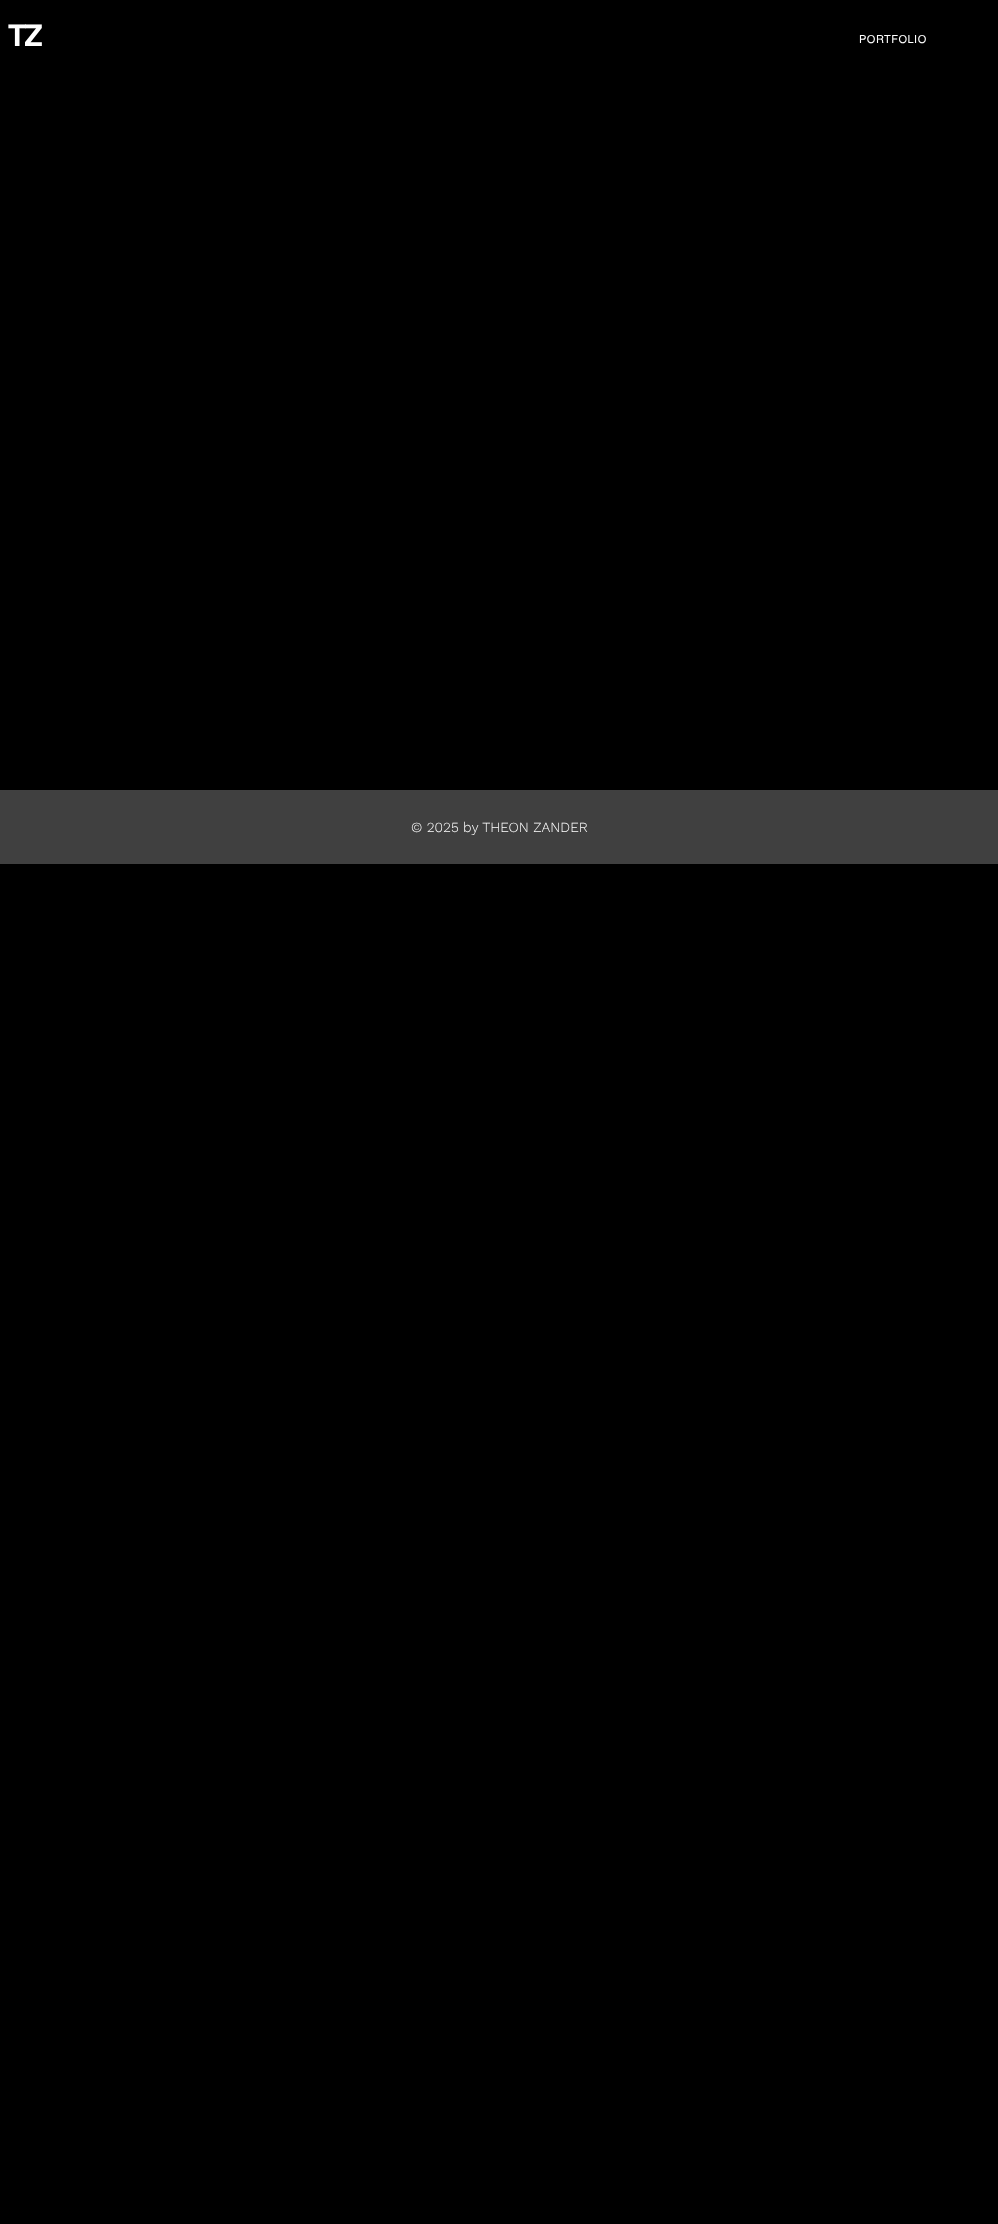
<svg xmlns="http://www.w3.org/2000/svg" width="998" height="2224">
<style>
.a{font:bold 30px helvetica;letter-spacing:-2px;fill:#fff}
.b{font:11px helvetica;letter-spacing:0.5px;fill:#fff}
.c{font:300 14px Work Sans;fill:#fff}
</style>
<rect width="100%" height="100%" fill="#000"/>
<path fill="#404040" d="M0 790h998v74H0z"/>
<text class="a" x="8" y="46">TZ</text>
<text class="b" x="859" y="43">PORTFOLIO</text>
<text class="c" x="411" y="832">© 2025 by THEON ZANDER</text>
</svg>
